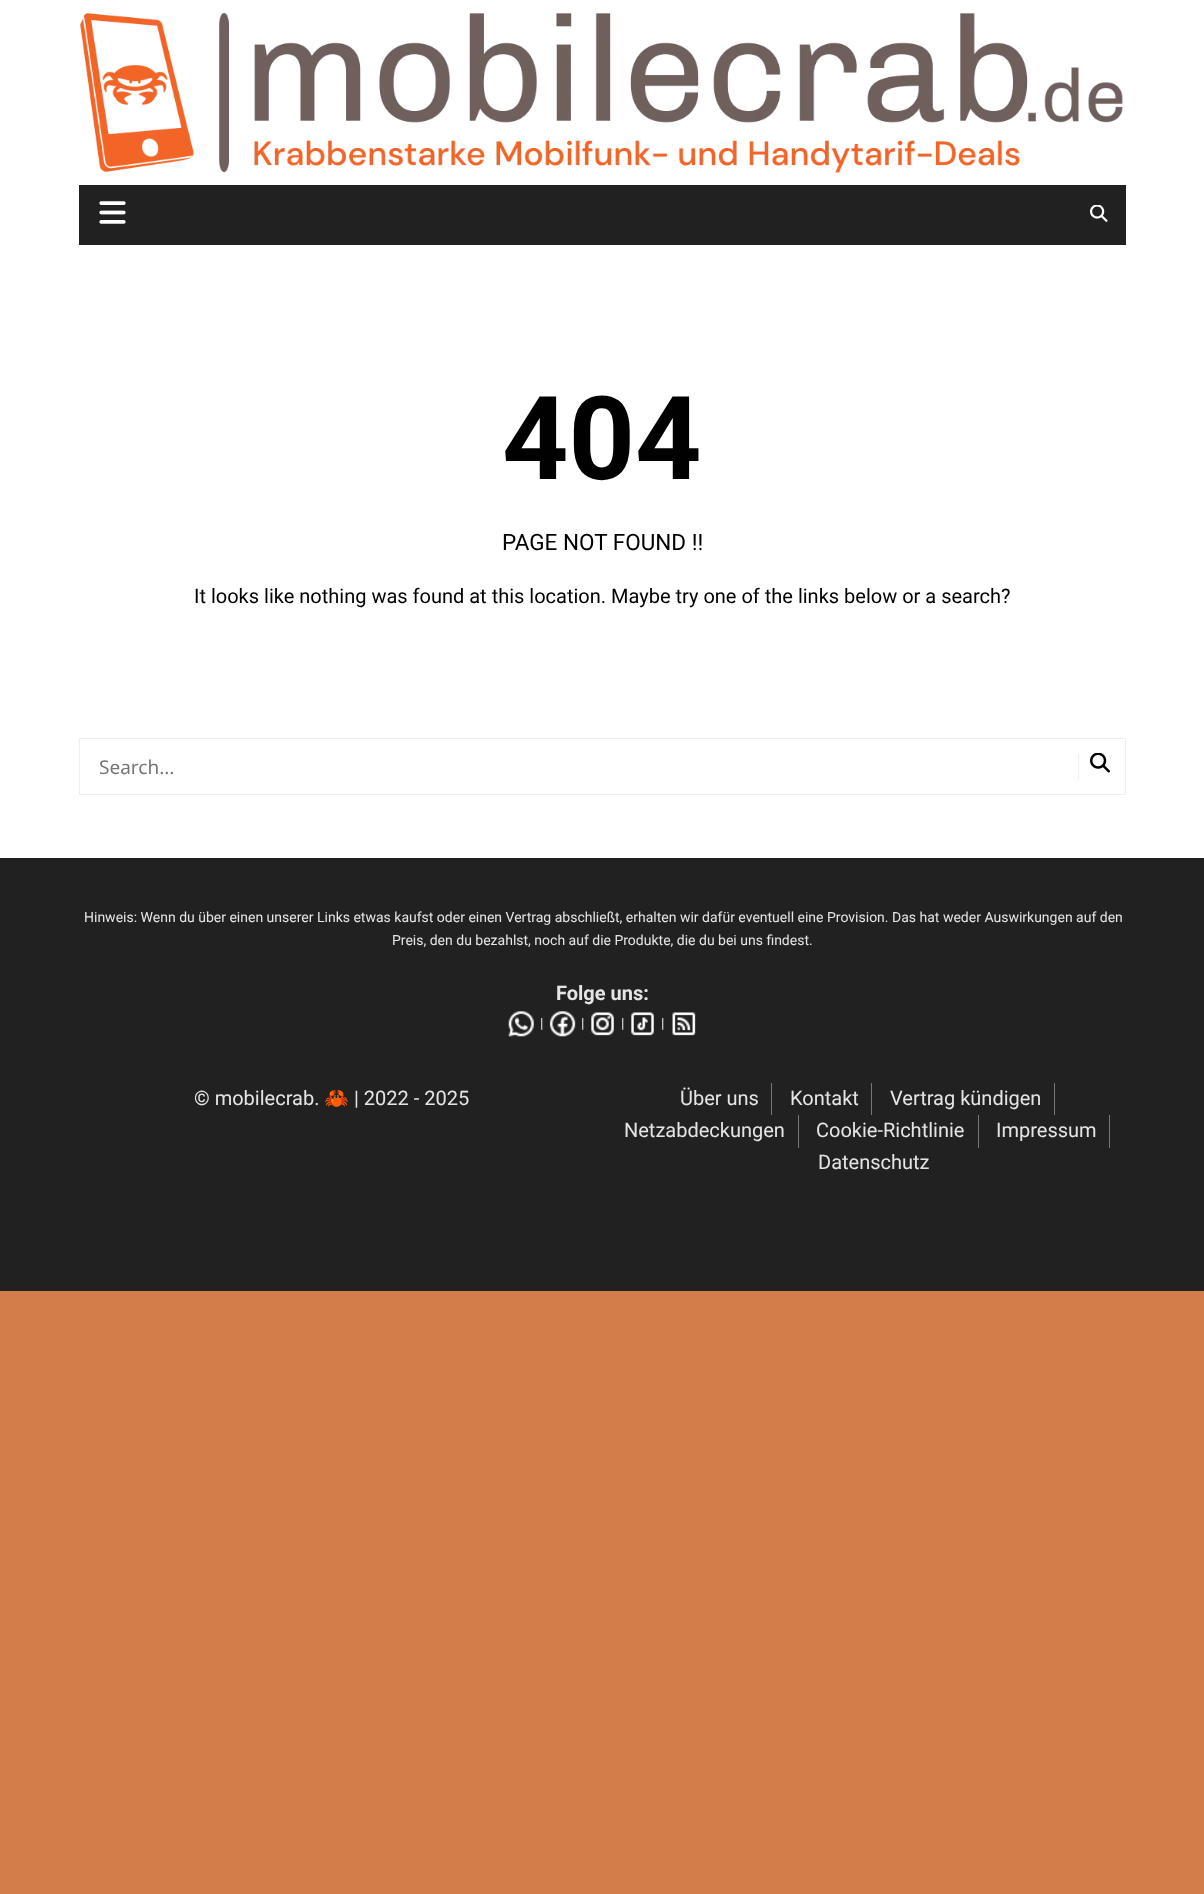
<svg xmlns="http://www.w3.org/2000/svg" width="1204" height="1894">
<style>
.a{font:bold 116px Roboto;fill:#010101}
.b{font:22.5px Roboto;fill:#010101}
.c{font:20px Roboto;fill:#010101}
.d{font:19px Noto Sans;fill:#757575}
.e{font:14px Roboto;fill:#e5e5e5}
.f{font:bold 20px Roboto;fill:#e5e5e5}
.g{font:20px Roboto;fill:#e5e5e5}
.h{font:20px Noto Color Emoji;fill:#e5e5e5}
</style>
<rect width="100%" height="100%" fill="#d37d4a"/>
<path fill="#fff" d="M0 0h1204v858H0z"/>
<image href="1.png" x="80" y="12" width="1043" height="161"/>
<path fill="#212121" d="M79 185h1047v60H79z"/>
<image href="2.png" x="99" y="201" width="27" height="23"/>
<image href="3.png" x="1090" y="205" width="18" height="17"/>
<path fill="none" stroke="#eee" d="M79.5 738.5h1046v56H79.5z"/>
<path fill="#eee" d="M1078 754h1v25H1078z"/>
<image href="4.png" x="1090" y="753" width="20" height="20"/>
<path fill="#212121" d="M0 858h1204v433H0z"/>
<image href="5.png" x="508" y="1011" width="26" height="26"/>
<image href="6.png" x="549" y="1011" width="27" height="26"/>
<image href="7.png" x="591" y="1012" width="23" height="24"/>
<image href="8.png" x="631" y="1012" width="23" height="24"/>
<image href="9.png" x="672" y="1012" width="24" height="24"/>
<path fill="#777" d="M771 1083h1v32H771z"/>
<path fill="#777" d="M871 1083h1v32H871z"/>
<path fill="#777" d="M1054 1083h1v32H1054z"/>
<path fill="#777" d="M798 1115h1v33H798z"/>
<path fill="#777" d="M978 1115h1v33H978z"/>
<path fill="#777" d="M1109 1115h1v33H1109z"/>
<text class="a" x="502" y="479">404</text>
<text class="b" x="502" y="550">PAGE NOT FOUND !!</text>
<text class="c" x="194" y="603">It looks like nothing was found at this location. Maybe try one of the links below or a search?</text>
<text class="d" x="99" y="774">Search...</text>
<text class="e" x="84" y="922">Hinweis: Wenn du über einen unserer Links etwas kaufst oder einen Vertrag abschließt, erhalten wir dafür eventuell eine Provision. Das hat weder Auswirkungen auf den</text>
<text class="e" x="392" y="945">Preis, den du bezahlst, noch auf die Produkte, die du bei uns findest.</text>
<text class="f" x="556" y="1000">Folge uns:</text>
<text class="e" x="540" y="1028">|</text>
<text class="e" x="581" y="1028">|</text>
<text class="e" x="621" y="1028">|</text>
<text class="e" x="661" y="1028">|</text>
<text class="g" x="194" y="1105">© mobilecrab.</text>
<text class="h" x="324" y="1105">🦀</text>
<text class="g" x="354" y="1105">| 2022 - 2025</text>
<text class="g" x="680" y="1105">Über uns</text>
<text class="g" x="790" y="1105">Kontakt</text>
<text class="g" x="890" y="1105">Vertrag kündigen</text>
<text class="g" x="624" y="1137">Netzabdeckungen</text>
<text class="g" x="816" y="1137">Cookie-Richtlinie</text>
<text class="g" x="996" y="1137">Impressum</text>
<text class="g" x="818" y="1169">Datenschutz</text>
</svg>
